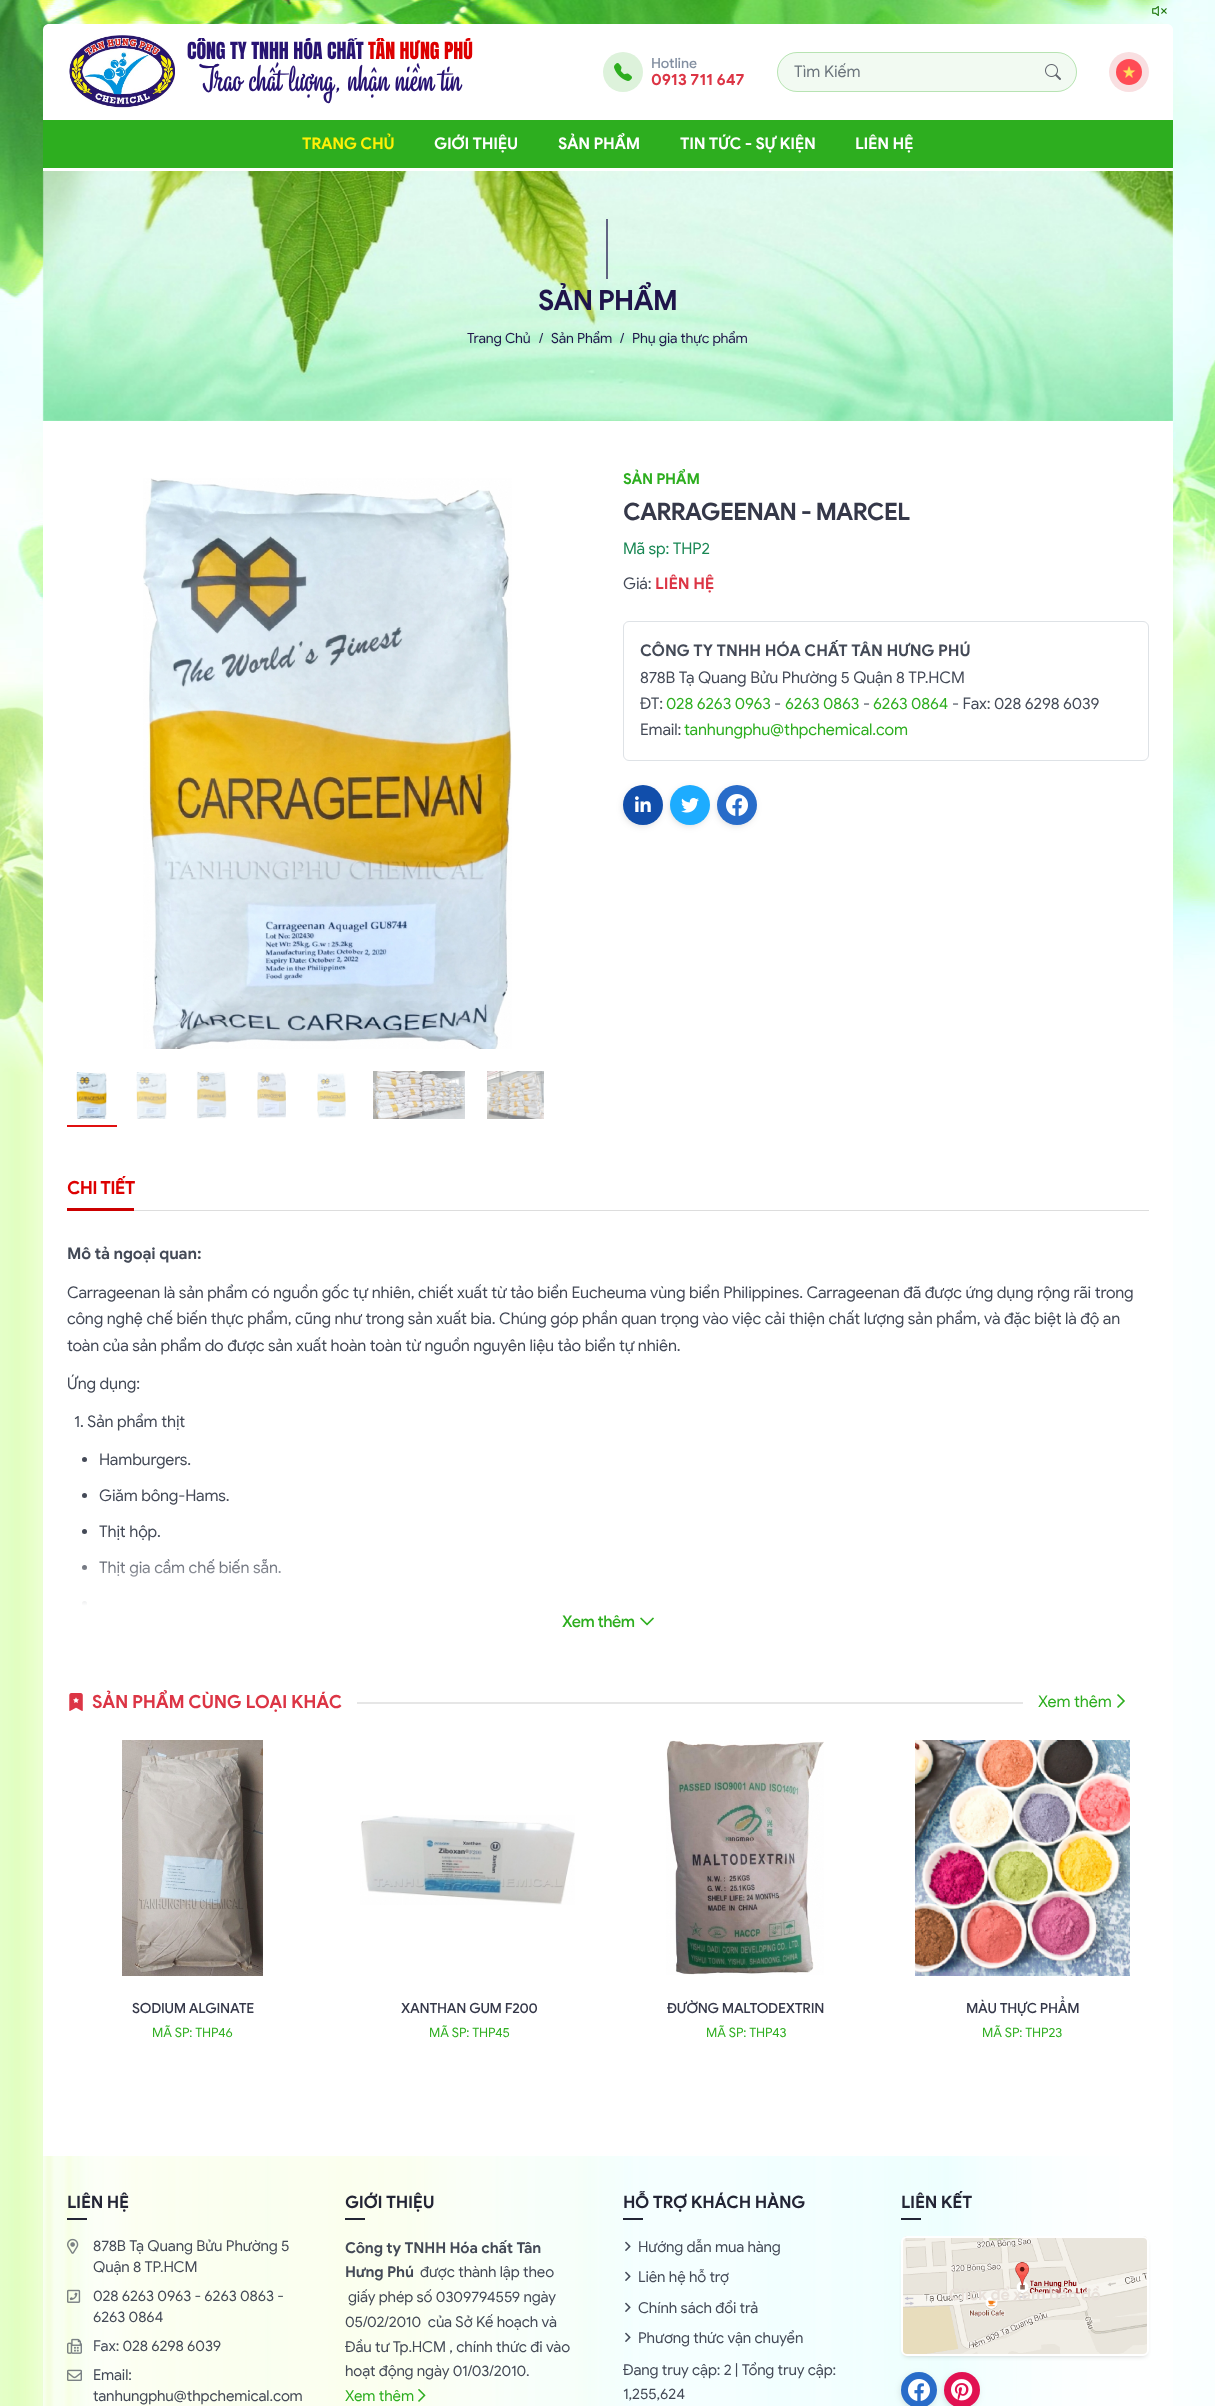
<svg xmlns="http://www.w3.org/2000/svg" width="1215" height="2406">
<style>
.a{font:20px Anton;letter-spacing:-0.1px;fill:#281473}
.b{font:20px Anton;letter-spacing:-0.1px;fill:#d00}
.c{font:34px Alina;letter-spacing:-0.1px;fill:#281473}
.d{font:500 14px Google Sans;letter-spacing:-0.1px;fill:#838fa1}
.e{font:bold 16px Google Sans;letter-spacing:-0.1px;fill:#dc3545}
.f{font:16px Google Sans;fill:#6c757d}
.g{font:bold 16px Google Sans;letter-spacing:-0.25px;fill:#fff007}
.h{font:bold 16px Google Sans;letter-spacing:-0.25px;fill:#fff}
.i{font:bold 28px Google Sans;letter-spacing:-1px;fill:#1f154b}
.j{font:14px Google Sans;letter-spacing:-0.1px;fill:#1f154b}
.k{font:bold 15px Google Sans;letter-spacing:-0.25px;fill:#2dae1f}
.l{font:bold 24px Google Sans;letter-spacing:-1px;fill:#353849}
.m{font:16px Google Sans;letter-spacing:-0.1px;fill:#198754}
.n{font:16px Google Sans;letter-spacing:-0.1px;fill:#444a57}
.o{font:bold 16px Google Sans;letter-spacing:-0.1px;fill:#444a57}
.p{font:16px Google Sans;letter-spacing:-0.1px;fill:#2dae1f}
.q{font:bold 18px Google Sans;letter-spacing:-0.75px;fill:#d00}
.r{font:500 16px Google Sans;letter-spacing:-0.5px;fill:#2dae1f}
.s{font:bold 18px Google Sans;letter-spacing:-0.25px;fill:#dc3545}
.t{font:500 14px Google Sans;letter-spacing:-0.25px;fill:#353849}
.u{font:13px Google Sans;letter-spacing:-0.1px;fill:#2dae1f}
.v{font:bold 17px Google Sans;letter-spacing:-0.25px;fill:#232535}
.w{font:15px Google Sans;letter-spacing:-0.1px;fill:#444a57}
.x{font:bold 15px Google Sans;letter-spacing:-0.1px;fill:#444a57}
.y{font:15px Google Sans;letter-spacing:-0.1px;fill:#2dae1f}
.z{font:bold 16px Google Sans;letter-spacing:-0.1px;fill:#e8e0da}
</style>
<defs>
<clipPath id="clip1"><path d="M175 38h298v68H175z"/></clipPath>
<linearGradient id="g1" gradientUnits="userSpaceOnUse" x1="608" y1="1641" x2="608" y2="1553"><stop offset="0.4" stop-color="#fff"/><stop offset="1" stop-color="#fff" stop-opacity="0"/></linearGradient>
</defs>
<rect width="100%" height="100%" fill="#fff"/>
<image href="1.png" x="0" y="0" width="1215" height="2406"/>
<image href="2.png" x="1152" y="6" width="15" height="10"/>
<path fill="#fff" d="M49 24h1118c3.5 0 6 2.5 6 6v141h-1130v-141c0-3.5 2.5-6 6-6z"/>
<image href="3.png" x="69" y="35" width="106" height="74"/>
<circle fill="#ddf2db" cx="623" cy="72" r="20"/>
<image href="4.png" x="614" y="63" width="18" height="18"/>
<rect fill="#f2faf2" x="777" y="52" width="300" height="40" rx="20"/>
<rect fill="none" stroke="#2dae1f4d" x="777.5" y="52.5" width="299" height="39" rx="19.5"/>
<image href="5.png" x="1045" y="64" width="16" height="16"/>
<circle fill="#f9dfe1" cx="1129" cy="72" r="20"/>
<image href="6.png" x="1116" y="59" width="26" height="26"/>
<path fill="#2dae1f" d="M43 120h1130v48H43z"/>
<image href="7.png" x="42" y="171" width="1131" height="250"/>
<path fill="#1f154ba6" d="M606 219h2v60H606z"/>
<path fill="#fff" d="M43 421h1130v1735H43z"/>
<image href="8.png" x="143" y="478" width="369" height="571"/>
<path fill="#e01010" d="M67 1125h50v2H67z"/>
<image href="9.png" x="76" y="1072" width="31" height="47"/>
<image href="10.png" x="136" y="1072" width="31" height="47"/>
<image href="11.png" x="196" y="1071" width="31" height="48"/>
<image href="12.png" x="257" y="1072" width="29" height="46"/>
<image href="13.png" x="317" y="1073" width="29" height="45"/>
<image href="14.png" x="373" y="1071" width="92" height="48"/>
<image href="15.png" x="487" y="1071" width="57" height="48"/>
<rect fill="none" stroke="#dee2e6" x="623.5" y="621.5" width="525" height="139" rx="5.5"/>
<rect fill="#0000004d" filter="blur(5px)" x="626" y="791" width="32" height="32" rx="16"/>
<circle fill="#114eab" cx="643" cy="805" r="20"/>
<image href="16.png" x="635" y="796" width="16" height="16"/>
<rect fill="#0000004d" filter="blur(5px)" x="673" y="791" width="32" height="32" rx="16"/>
<circle fill="#1dacff" cx="690" cy="805" r="20"/>
<image href="17.png" x="681" y="797" width="18" height="16"/>
<rect fill="#0000004d" filter="blur(5px)" x="720" y="791" width="32" height="32" rx="16"/>
<circle fill="#286cc9" cx="737" cy="805" r="20"/>
<image href="18.png" x="726" y="794" width="22" height="22"/>
<path fill="#ddd" d="M134 1210h1015v1H134z"/>
<path fill="#c00" d="M67 1208h67v3H67z"/>
<circle fill="#444a57" cx="84.5" cy="1459.5" r="2.5"/>
<circle fill="#444a57" cx="84.5" cy="1495.5" r="2.5"/>
<circle fill="#444a57" cx="84.5" cy="1531.5" r="2.5"/>
<circle fill="#444a57" cx="84.5" cy="1567.5" r="2.5"/>
<circle fill="#444a57" cx="84.5" cy="1603.5" r="2.5"/>
<image href="19.png" x="640" y="1617" width="14" height="9"/>
<image href="20.png" x="69" y="1693" width="14" height="18"/>
<path fill="#e6e6e6" d="M357 1702h666v2H357z"/>
<image href="21.png" x="1117" y="1694" width="8" height="14"/>
<image href="22.png" x="122" y="1740" width="141" height="236"/>
<image href="23.png" x="360" y="1815" width="215" height="90"/>
<image href="24.png" x="666" y="1740" width="158" height="235"/>
<image href="25.png" x="915" y="1740" width="215" height="236"/>
<path fill="#ffffffa6" d="M43 2156h1130v250H43z"/>
<path fill="#232535" d="M67 2218h20v2H67z"/>
<image href="26.png" x="67" y="2238" width="12" height="16"/>
<image href="27.png" x="67" y="2289" width="14" height="14"/>
<image href="28.png" x="67" y="2338" width="15" height="16"/>
<image href="29.png" x="67" y="2369" width="15" height="12"/>
<path fill="#232535" d="M345 2218h20v2H345z"/>
<image href="30.png" x="418" y="2389" width="8" height="13"/>
<path fill="#232535" d="M623 2218h20v2H623z"/>
<image href="31.png" x="625" y="2241" width="6" height="10"/>
<image href="31.png" x="625" y="2271" width="6" height="10"/>
<image href="31.png" x="625" y="2302" width="6" height="10"/>
<image href="31.png" x="625" y="2332" width="6" height="10"/>
<path fill="#232535" d="M901 2218h20v2H901z"/>
<rect fill="#00000033" filter="blur(2.5px)" x="904" y="2242" width="242" height="114" rx="3"/>
<image href="32.png" x="903" y="2236" width="244" height="120"/>
<rect fill="none" stroke="#fff" stroke-width="2" x="902" y="2237" width="246" height="118" rx="5"/>
<rect fill="#0000004d" filter="blur(5px)" x="904" y="2378" width="28" height="28" rx="14"/>
<circle fill="#286cc9" cx="919" cy="2390" r="18"/>
<image href="18.png" x="908" y="2379" width="22" height="22"/>
<rect fill="#0000004d" filter="blur(5px)" x="947" y="2378" width="28" height="28" rx="14"/>
<circle fill="#e11151" cx="962" cy="2390" r="18"/>
<image href="33.png" x="951" y="2379" width="22" height="22"/>
<g clip-path="url(#clip1)">
<text class="a" x="187" y="59">CÔNG TY TNHH HÓA CHẤT</text>
<text class="b" x="368" y="59">TÂN HƯNG PHÚ</text>
</g>
<text class="c" x="199" y="91">Trao chất lượng, nhận niềm tin</text>
<text class="d" x="651" y="68">Hotline</text>
<text class="e" x="651" y="85">0913 711 647</text>
<text class="f" x="794" y="77">Tìm Kiếm</text>
<text class="g" x="302" y="149">TRANG CHỦ</text>
<text class="h" x="434" y="149">GIỚI THIỆU</text>
<text class="h" x="558" y="149">SẢN PHẨM</text>
<text class="h" x="680" y="149">TIN TỨC - SỰ KIỆN</text>
<text class="h" x="855" y="149">LIÊN HỆ</text>
<text class="i" x="538" y="310">SẢN PHẨM</text>
<text class="j" x="467" y="343">Trang Chủ</text>
<text class="j" x="539" y="343">/</text>
<text class="j" x="551" y="343">Sản Phẩm</text>
<text class="j" x="620" y="343">/</text>
<text class="j" x="632" y="343">Phụ gia thực phẩm</text>
<text class="k" x="623" y="484">SẢN PHẨM</text>
<text class="l" x="623" y="520">CARRAGEENAN - MARCEL</text>
<text class="m" x="623" y="554">Mã sp: THP2</text>
<text class="n" x="623" y="589">Giá:</text>
<text class="e" x="655" y="589">LIÊN HỆ</text>
<text class="o" x="640" y="656">CÔNG TY TNHH HÓA CHẤT TÂN HƯNG PHÚ</text>
<text class="n" x="640" y="683">878B Tạ Quang Bửu Phường 5 Quận 8 TP.HCM</text>
<text class="n" x="640" y="709">ĐT:</text>
<text class="p" x="666" y="709">028 6263 0963</text>
<text class="n" x="774" y="709">-</text>
<text class="p" x="785" y="709">6263 0863</text>
<text class="n" x="863" y="709">-</text>
<text class="p" x="873" y="709">6263 0864</text>
<text class="n" x="952" y="709">- Fax: 028 6298 6039</text>
<text class="n" x="640" y="735">Email:</text>
<text class="p" x="684" y="735">tanhungphu@thpchemical.com</text>
<text class="q" x="67" y="1194">CHI TIẾT</text>
<text class="o" x="67" y="1259">Mô tả ngoại quan:</text>
<text class="n" x="67" y="1298">Carrageenan là sản phẩm có nguồn gốc tự nhiên, chiết xuất từ tảo biển Eucheuma vùng biển Philippines. Carrageenan đã được ứng dụng rộng rãi trong</text>
<text class="n" x="67" y="1324">công nghệ chế biến thực phẩm, cũng như trong sản xuất bia. Chúng góp phần quan trọng vào việc cải thiện chất lượng sản phẩm, và đặc biệt là độ an</text>
<text class="n" x="67" y="1351">toàn của sản phẩm do được sản xuất hoàn toàn từ nguồn nguyên liệu tảo biển tự nhiên.</text>
<text class="n" x="67" y="1389">Ứng dụng:</text>
<text class="n" x="74" y="1427">1. Sản phẩm thịt</text>
<text class="n" x="99" y="1465">Hamburgers.</text>
<text class="n" x="99" y="1501">Giăm bông-Hams.</text>
<text class="n" x="99" y="1537">Thịt hộp.</text>
<text class="n" x="99" y="1573">Thịt gia cầm chế biến sẵn.</text>
<path fill="url(#g1)" d="M82 1559h199v47H82z"/>
<text class="r" x="562" y="1627">Xem thêm</text>
<text class="s" x="92" y="1708">SẢN PHẨM CÙNG LOẠI KHÁC</text>
<text class="p" x="1038" y="1707">Xem thêm</text>
<text class="t" x="132" y="2013">SODIUM ALGINATE</text>
<text class="u" x="152" y="2037">MÃ SP: THP46</text>
<text class="t" x="401" y="2013">XANTHAN GUM F200</text>
<text class="u" x="429" y="2037">MÃ SP: THP45</text>
<text class="t" x="667" y="2013">ĐƯỜNG MALTODEXTRIN</text>
<text class="u" x="706" y="2037">MÃ SP: THP43</text>
<text class="t" x="966" y="2013">MÀU THỰC PHẨM</text>
<text class="u" x="982" y="2037">MÃ SP: THP23</text>
<text class="v" x="67" y="2208">LIÊN HỆ</text>
<text class="w" x="93" y="2251">878B Tạ Quang Bửu Phường 5</text>
<text class="w" x="93" y="2272">Quận 8 TP.HCM</text>
<text class="w" x="93" y="2301">028 6263 0963 - 6263 0863 -</text>
<text class="w" x="93" y="2322">6263 0864</text>
<text class="w" x="93" y="2351">Fax: 028 6298 6039</text>
<text class="w" x="93" y="2380">Email:</text>
<text class="w" x="93" y="2401">tanhungphu@thpchemical.com</text>
<text class="v" x="345" y="2208">GIỚI THIỆU</text>
<text class="x" x="345" y="2253">Công ty TNHH Hóa chất Tân</text>
<text class="x" x="345" y="2277">Hưng Phú</text>
<text class="w" x="420" y="2277">được thành lập theo</text>
<text class="w" x="348" y="2302">giấy phép số 0309794559 ngày</text>
<text class="w" xml:space="preserve" x="345" y="2327">05/02/2010  của Sở Kế hoạch và</text>
<text class="w" x="345" y="2352">Đầu tư Tp.HCM , chính thức đi vào</text>
<text class="w" x="345" y="2376">hoạt động ngày 01/03/2010.</text>
<text class="y" x="345" y="2401">Xem thêm</text>
<text class="v" x="623" y="2208">HỖ TRỢ KHÁCH HÀNG</text>
<text class="w" x="638" y="2252">Hướng dẫn mua hàng</text>
<text class="w" x="638" y="2282">Liên hệ hỗ trợ</text>
<text class="w" x="638" y="2313">Chính sách đổi trả</text>
<text class="w" x="638" y="2343">Phương thức vận chuyển</text>
<text class="w" x="623" y="2375">Đang truy cập: 2 | Tổng truy cập:</text>
<text class="w" x="623" y="2399">1,255,624</text>
<text class="v" x="901" y="2208">LIÊN KẾT</text>
<text class="z" x="949" y="2300">Click để xem bản đồ</text>
</svg>
